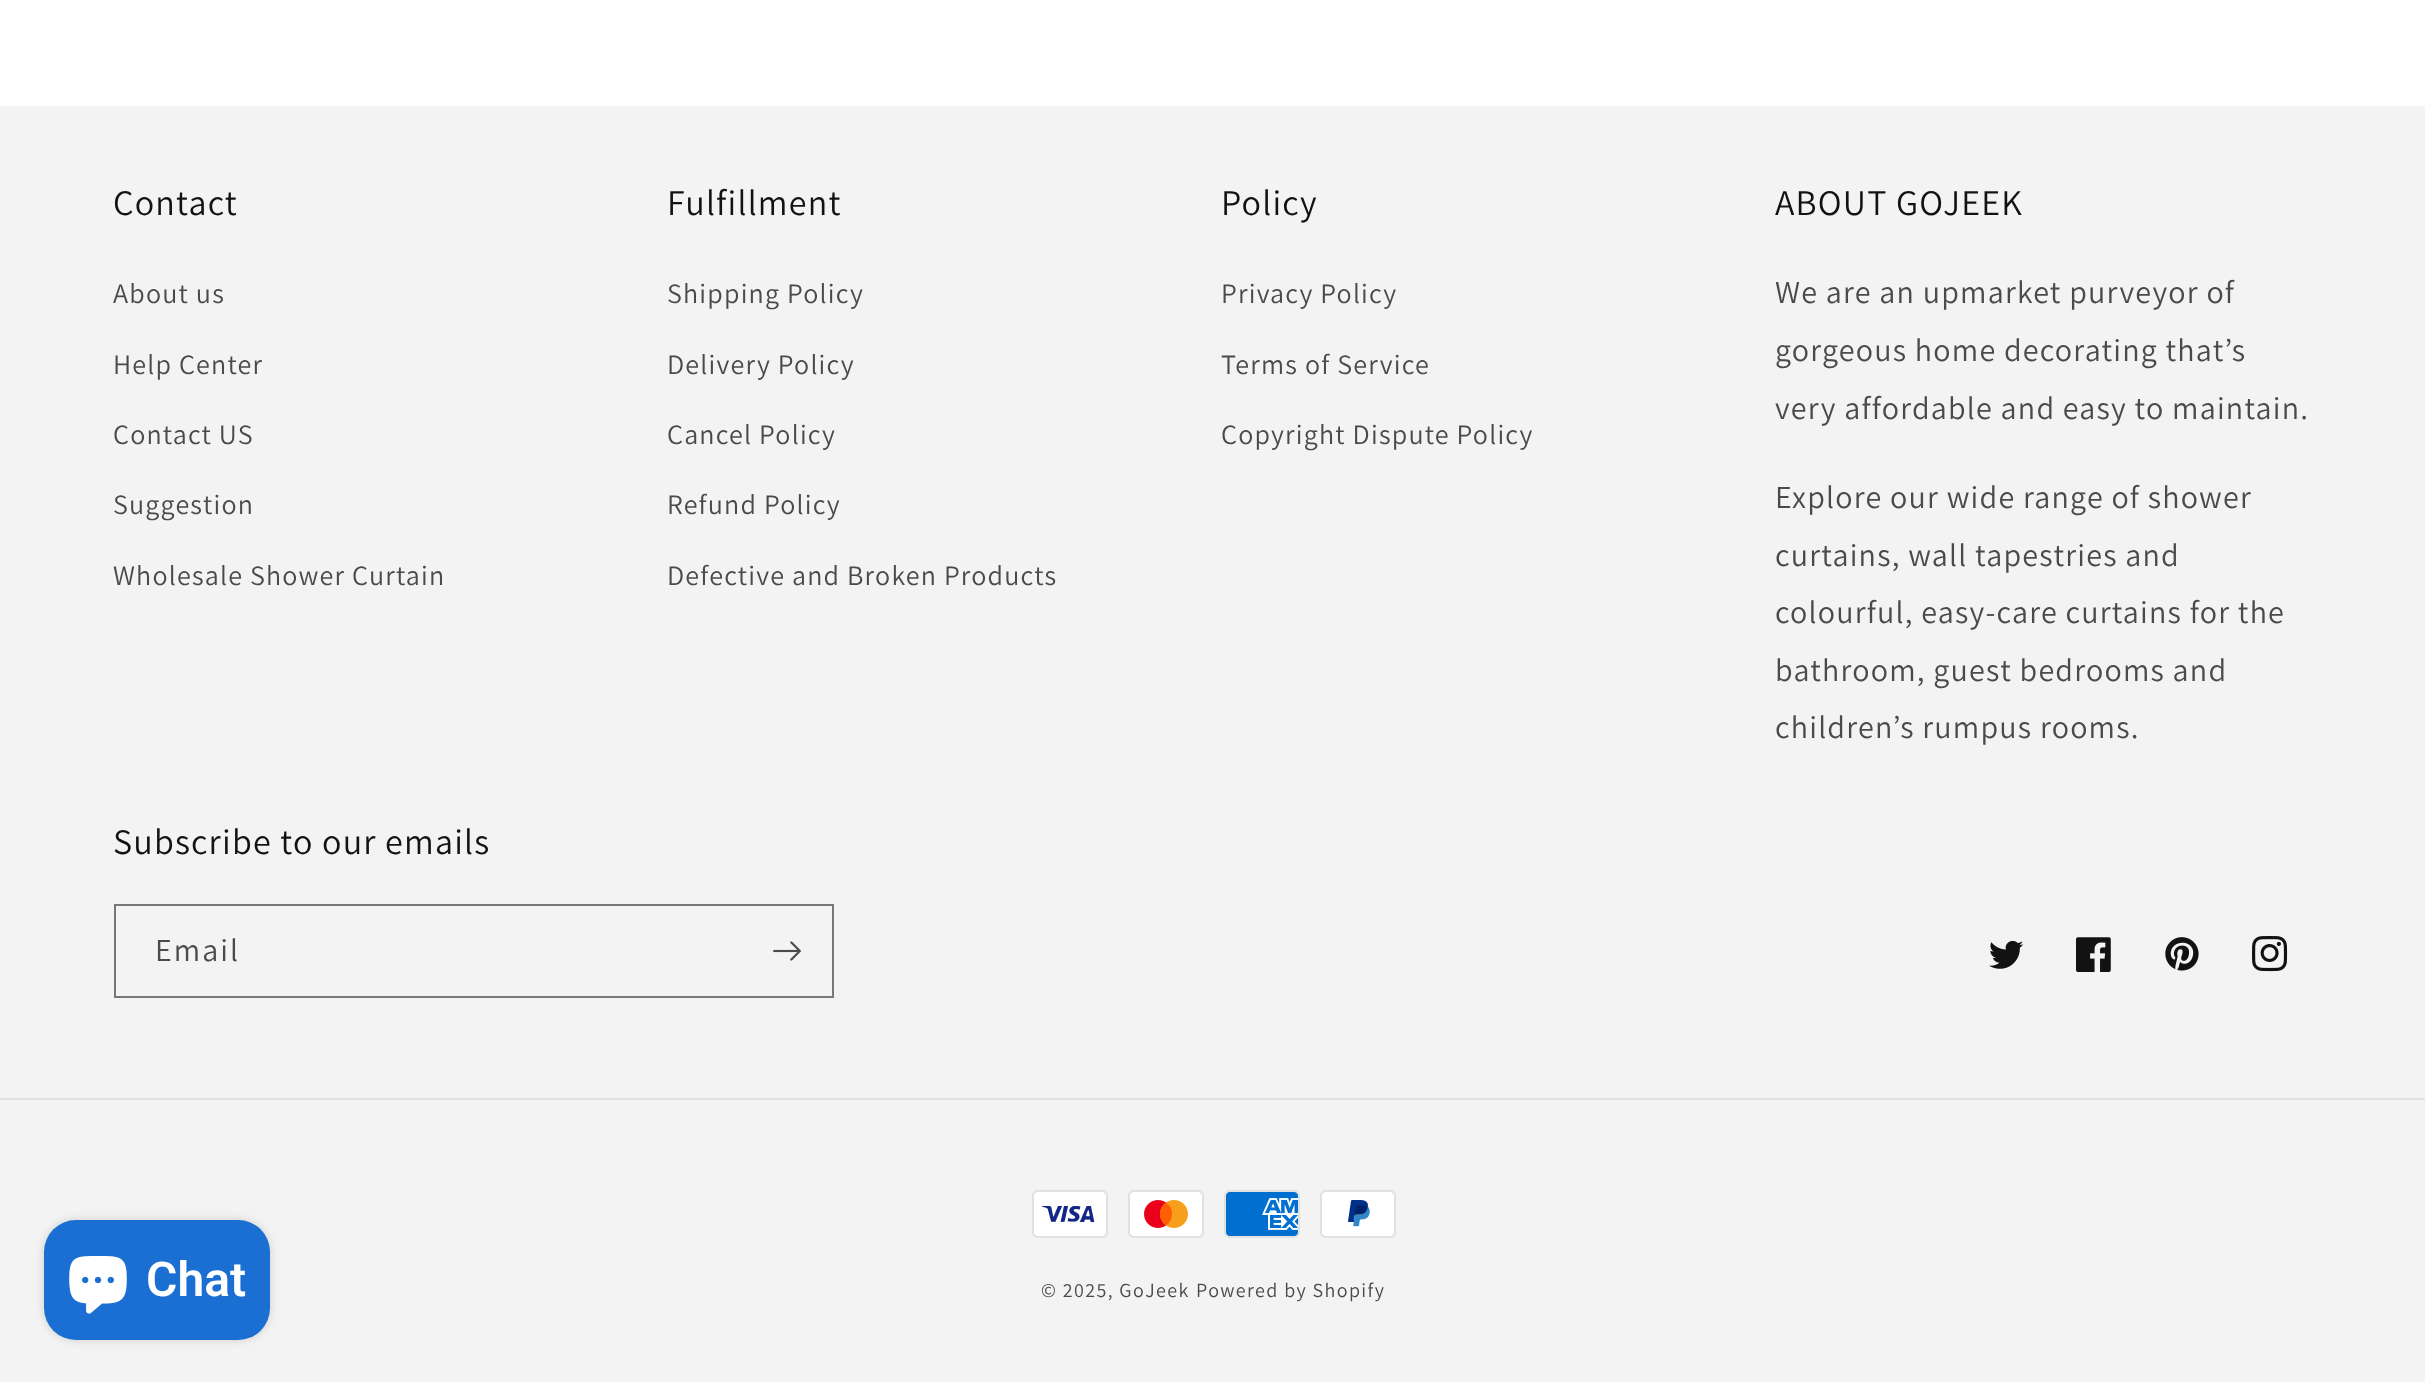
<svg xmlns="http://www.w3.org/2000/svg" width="2425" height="1382">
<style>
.a{font:36px Assistant;letter-spacing:1.2px;fill:#121212}
.b{font:28px Assistant;letter-spacing:1.2px;fill:#4a4a4a}
.c{font:32px Assistant;letter-spacing:1.2px;fill:#4a4a4a}
.d{font:32px Assistant;letter-spacing:2px;fill:#4a4a4a}
.e{font:20px Assistant;letter-spacing:1.4px;fill:#4a4a4a}
.f{font:600 48px Roboto;fill:#fff}
</style>
<rect width="100%" height="100%" fill="#fff"/>
<path fill="#f3f3f3" d="M0 106h2425v1276H0z"/>
<path fill="none" stroke="#777" stroke-width="2" d="M115 905h718v92H115z"/>
<image href="1.png" x="773" y="941" width="28" height="20"/>
<image href="2.png" x="1989" y="940" width="35" height="29"/>
<image href="3.png" x="2076" y="937" width="35" height="35"/>
<image href="4.png" x="2165" y="937" width="34" height="34"/>
<image href="5.png" x="2252" y="936" width="36" height="36"/>
<path fill="#e1e1e1" d="M0 1098h2425v2H0z"/>
<image href="6.png" x="1032" y="1190" width="76" height="48"/>
<image href="7.png" x="1128" y="1190" width="76" height="48"/>
<image href="8.png" x="1224" y="1190" width="76" height="48"/>
<image href="9.png" x="1320" y="1190" width="76" height="48"/>
<rect fill="#00000026" filter="blur(5px)" x="44" y="1220" width="226" height="120" rx="32"/>
<rect fill="#1b6fd2" x="44" y="1220" width="226" height="120" rx="32"/>
<image href="10.png" x="69" y="1256" width="58" height="58"/>
<text class="a" x="113" y="215">Contact</text>
<text class="b" x="113" y="303">About us</text>
<text class="b" x="113" y="374">Help Center</text>
<text class="b" x="113" y="444">Contact US</text>
<text class="b" x="113" y="514">Suggestion</text>
<text class="b" x="113" y="585">Wholesale Shower Curtain</text>
<text class="a" x="667" y="215">Fulfillment</text>
<text class="b" x="667" y="303">Shipping Policy</text>
<text class="b" x="667" y="374">Delivery Policy</text>
<text class="b" x="667" y="444">Cancel Policy</text>
<text class="b" x="667" y="514">Refund Policy</text>
<text class="b" x="667" y="585">Defective and Broken Products</text>
<text class="a" x="1221" y="215">Policy</text>
<text class="b" x="1221" y="303">Privacy Policy</text>
<text class="b" x="1221" y="374">Terms of Service</text>
<text class="b" x="1221" y="444">Copyright Dispute Policy</text>
<text class="a" x="1775" y="215">ABOUT GOJEEK</text>
<text class="c" x="1775" y="303">We are an upmarket purveyor of</text>
<text class="c" x="1775" y="361">gorgeous home decorating that’s</text>
<text class="c" x="1775" y="419">very affordable and easy to maintain.</text>
<text class="c" x="1775" y="508">Explore our wide range of shower</text>
<text class="c" x="1775" y="566">curtains, wall tapestries and</text>
<text class="c" x="1775" y="623">colourful, easy-care curtains for the</text>
<text class="c" x="1775" y="681">bathroom, guest bedrooms and</text>
<text class="c" x="1775" y="738">children’s rumpus rooms.</text>
<text class="a" x="113" y="854">Subscribe to our emails</text>
<text class="d" x="155" y="961">Email</text>
<text class="e" x="1041" y="1297">© 2025, GoJeek</text>
<text class="e" x="1196" y="1297">Powered by Shopify</text>
<text class="f" x="146" y="1296">Chat</text>
</svg>
